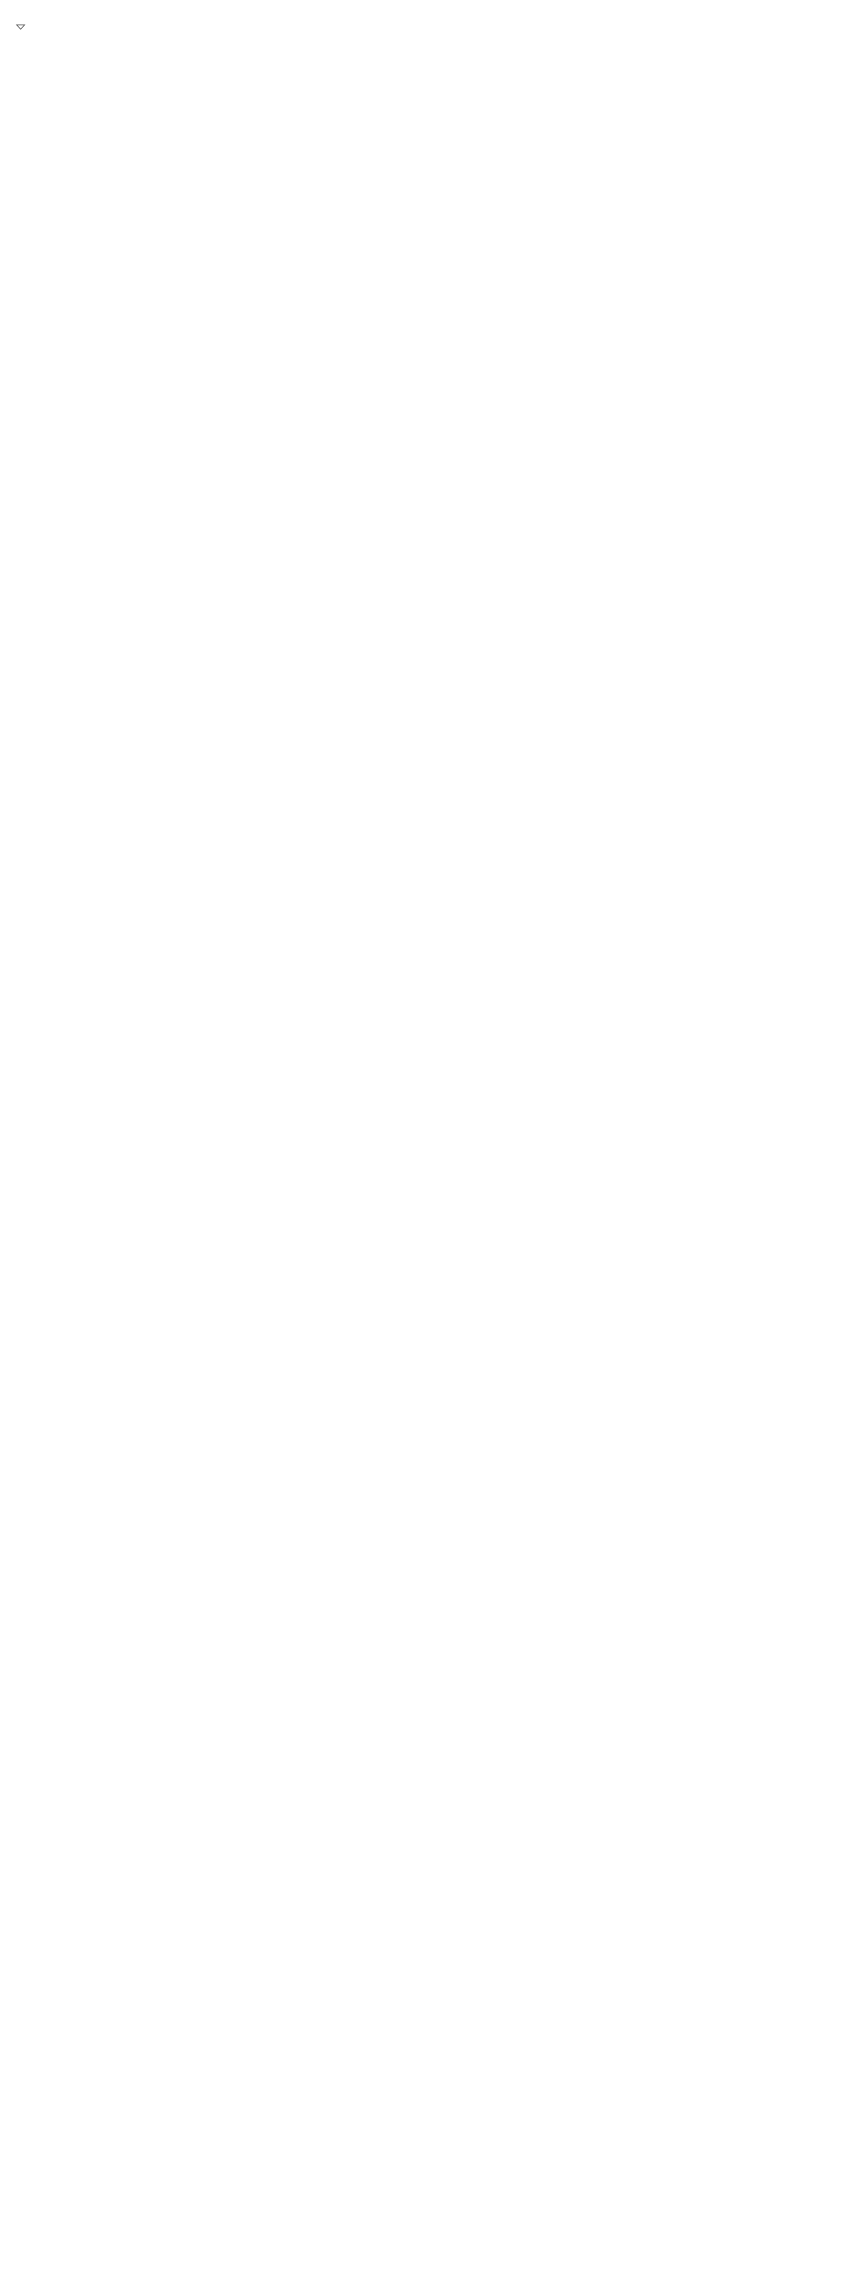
<svg xmlns="http://www.w3.org/2000/svg" width="854" height="2272">
<rect width="100%" height="100%" fill="#fff"/>
<image href="1.png" x="15" y="24" width="11" height="6"/>
</svg>
